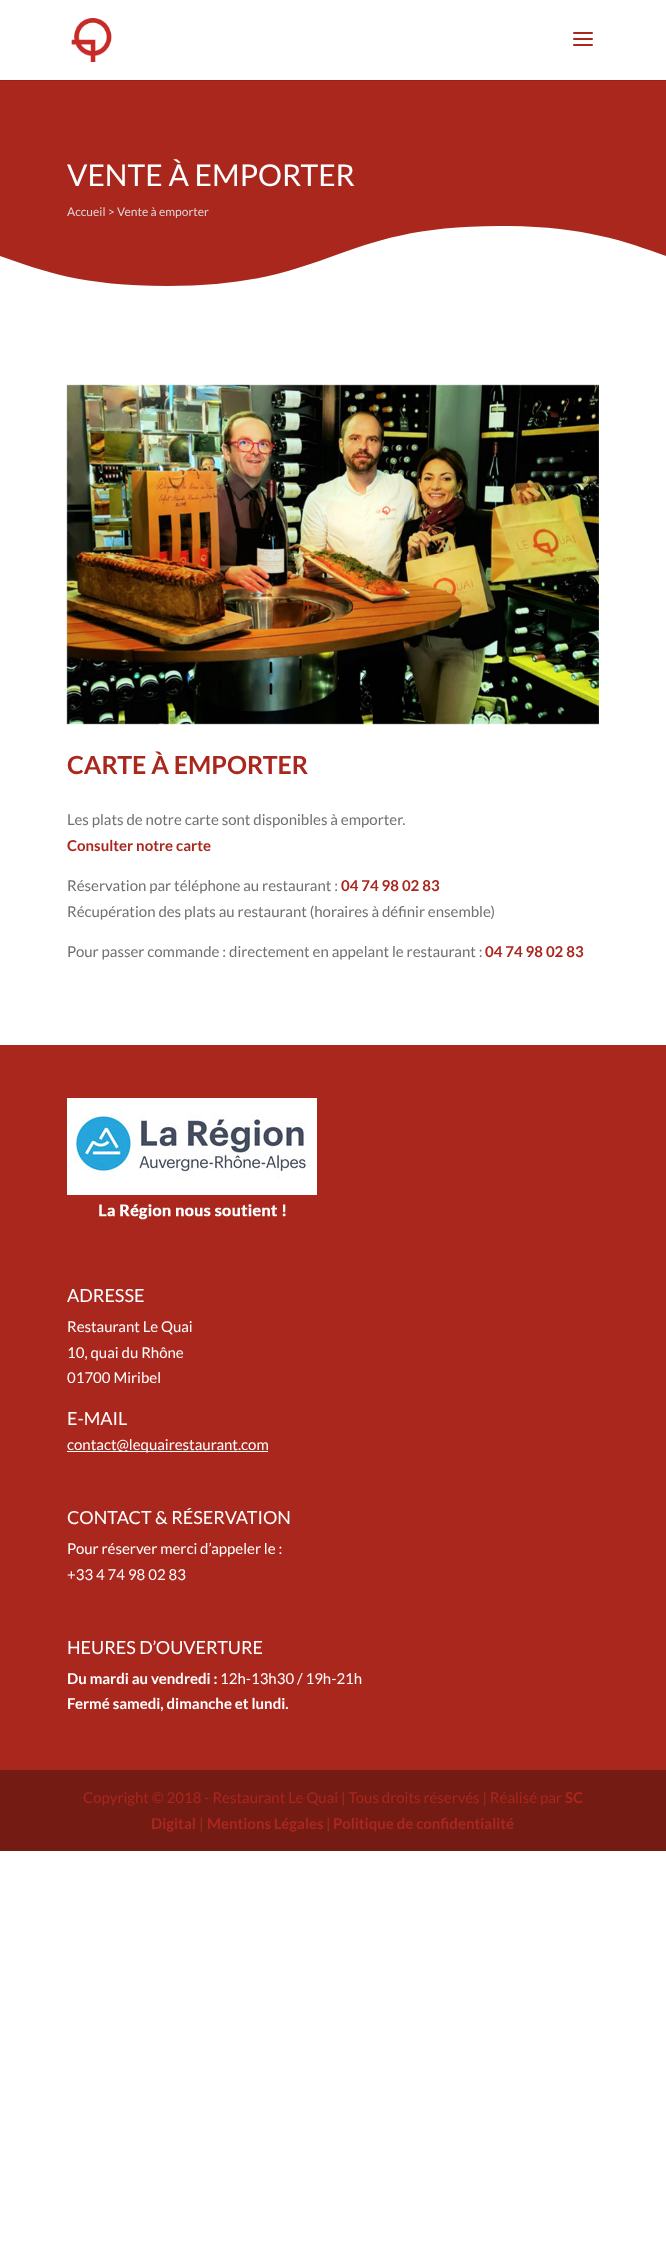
<svg xmlns="http://www.w3.org/2000/svg" width="666" height="2245">
<style>
.a{font:30px Lato;fill:#fff}
.b{font:12px Lato;fill:#dbd8d8}
.c{font:bold 25px Lato;fill:#aa271e}
.d{font:15px Lato;fill:#707070}
.e{font:bold 15px Lato;fill:#aa271e}
.f{font:18px Lato;fill:#fff}
.g{font:15px Lato;fill:#fff}
.h{font:bold 15px Lato;fill:#fff}
.i{font:15px Lato;fill:#aa271e}
</style>
<rect width="100%" height="100%" fill="#fff"/>
<path fill="#99231b" d="M0 80h666v1H0z"/>
<image href="1.png" x="71" y="18" width="41" height="44"/>
<image href="2.png" x="573" y="32" width="20" height="14"/>
<path fill="#aa271e" d="M0 81h666v205H0z"/>
<path fill="#fff" d="M500 226c-167 0-167 60-333 60c-84 0-125-15-167-30v50h666v-50c-42-15-83-30-166-30z"/>
<image href="3.png" x="66" y="384" width="533" height="341"/>
<path fill="#aa271e" d="M0 1045h666v725H0z"/>
<image href="4.png" x="67" y="1098" width="250" height="122"/>
<path fill="#fff" d="M67 1451h201v1H67z"/>
<path fill="#741b14" d="M0 1770h666v81H0z"/>
<text class="a" x="67" y="186">VENTE À EMPORTER</text>
<text class="b" x="67" y="216">Accueil &gt; Vente à emporter</text>
<text class="c" x="67" y="774">CARTE À EMPORTER</text>
<text class="d" x="67" y="825">Les plats de notre carte sont disponibles à emporter.</text>
<text class="e" x="67" y="851">Consulter notre carte</text>
<text class="d" x="67" y="891">Réservation par téléphone au restaurant :</text>
<text class="e" x="341" y="891">04 74 98 02 83</text>
<text class="d" x="67" y="917">Récupération des plats au restaurant (horaires à définir ensemble)</text>
<text class="d" x="67" y="957">Pour passer commande : directement en appelant le restaurant :</text>
<text class="e" x="485" y="957">04 74 98 02 83</text>
<text class="f" x="67" y="1302">ADRESSE</text>
<text class="g" x="67" y="1332">Restaurant Le Quai</text>
<text class="g" x="67" y="1358">10, quai du Rhône</text>
<text class="g" x="67" y="1383">01700 Miribel</text>
<text class="f" x="67" y="1425">E-MAIL</text>
<text class="g" x="67" y="1450">contact@lequairestaurant.com</text>
<text class="f" x="67" y="1524">CONTACT &amp; RÉSERVATION</text>
<text class="g" x="67" y="1554">Pour réserver merci d’appeler le :</text>
<text class="g" x="67" y="1580">+33 4 74 98 02 83</text>
<text class="f" x="67" y="1654">HEURES D’OUVERTURE</text>
<text class="h" x="67" y="1684">Du mardi au vendredi :</text>
<text class="g" x="220" y="1684">12h-13h30 / 19h-21h</text>
<text class="h" x="67" y="1709">Fermé samedi, dimanche et lundi.</text>
<text class="i" x="83" y="1803">Copyright © 2018 - Restaurant Le Quai | Tous droits réservés | Réalisé par</text>
<text class="e" x="565" y="1803">SC</text>
<text class="e" x="151" y="1829">Digital</text>
<text class="i" x="199" y="1829">|</text>
<text class="e" x="207" y="1829">Mentions Légales</text>
<text class="i" x="326" y="1829">|</text>
<text class="e" x="333" y="1829">Politique de confidentialité</text>
</svg>
